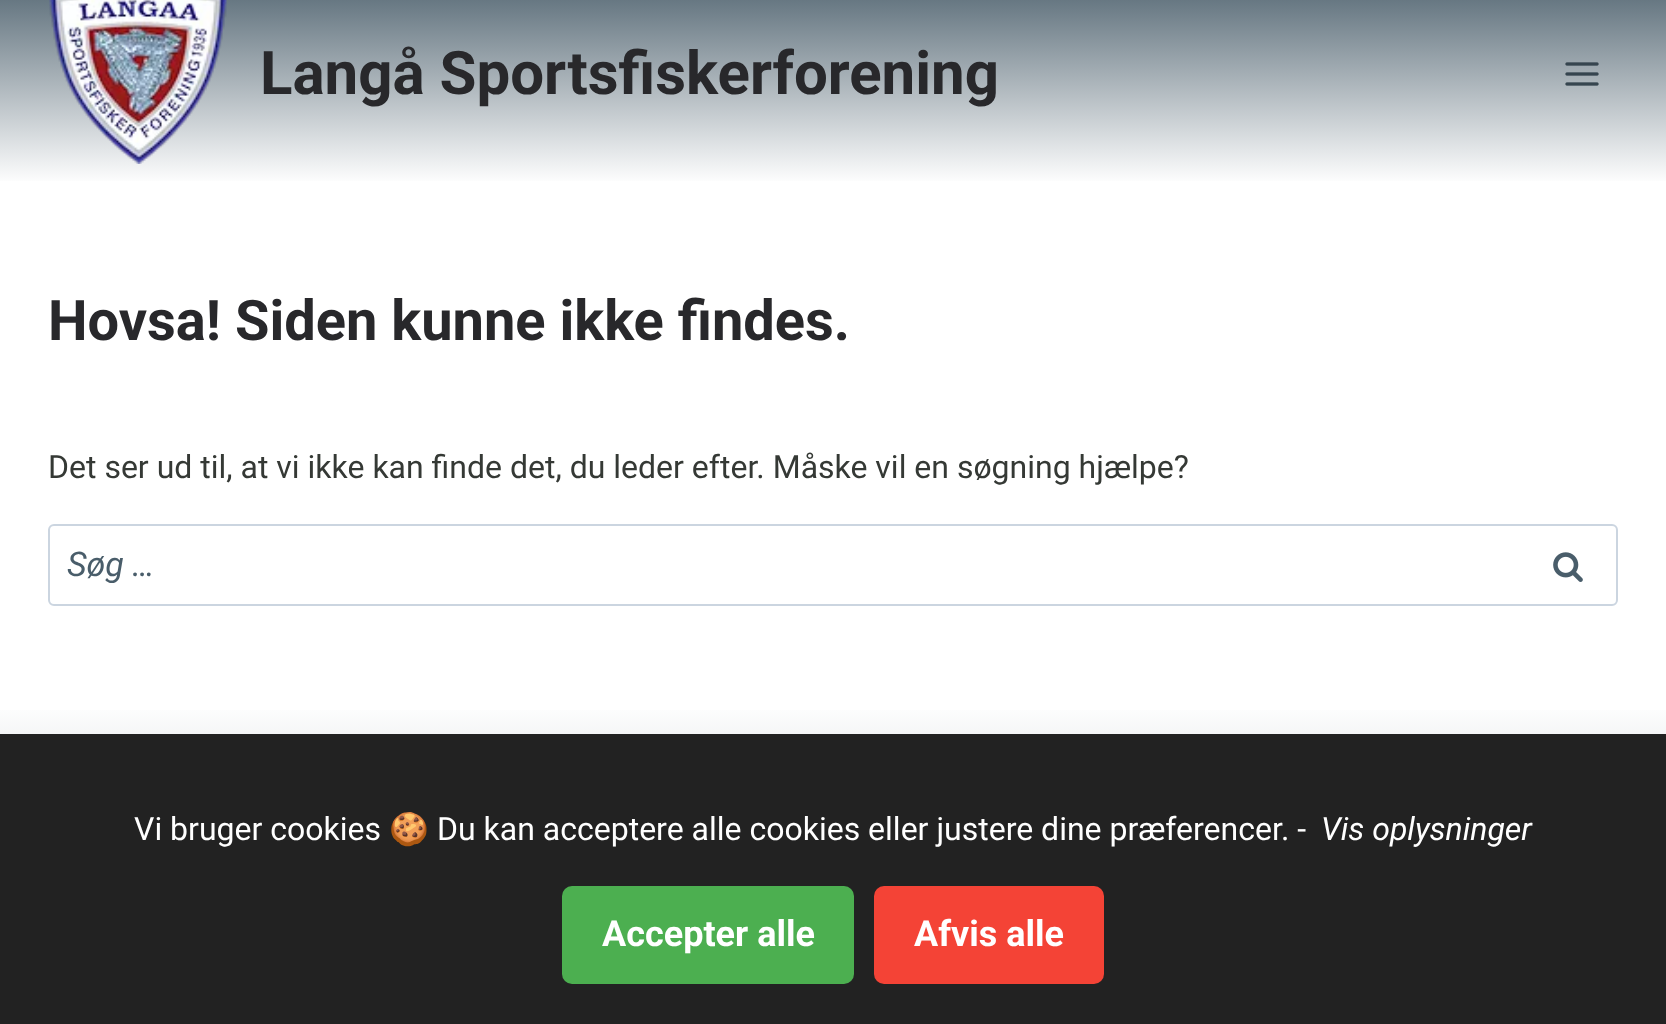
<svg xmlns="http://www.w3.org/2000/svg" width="1666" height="1024">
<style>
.a{font:bold 60px Roboto;fill:#28282b}
.b{font:bold 56px Roboto;fill:#28282b}
.c{font:32px Roboto;fill:#353935}
.d{font:italic 34px Roboto;fill:#495d6a}
.e{font:32px Roboto;fill:#fff}
.f{font:32px Noto Color Emoji;fill:#fff}
.g{font:italic 32px Roboto;fill:#fff}
.h{font:bold 36px Roboto;fill:#fff}
</style>
<defs>
<linearGradient id="g1" gradientUnits="userSpaceOnUse" x1="833" y1="-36" x2="833" y2="184"><stop offset="0" stop-color="#495d6a"/><stop offset="1" stop-color="#fff"/></linearGradient>
<linearGradient id="g2" gradientUnits="userSpaceOnUse" x1="833" y1="702" x2="833" y2="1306"><stop offset="0" stop-color="#fff"/><stop offset="1" stop-color="#495d6a"/></linearGradient>
</defs>
<rect width="100%" height="100%" fill="#fff"/>
<path fill="url(#g1)" d="M0 0h1666v181H0z"/>
<image href="1.png" x="49" y="0" width="178" height="164"/>
<image href="2.png" x="1565" y="62" width="34" height="24"/>
<rect fill="none" stroke="#cbd5e0" stroke-width="2" x="49" y="525" width="1568" height="80" rx="5"/>
<image href="3.png" x="1553" y="552" width="30" height="30"/>
<path fill="url(#g2)" d="M0 710h1666v24H0z"/>
<path fill="#222" d="M0 734h1666v290H0z"/>
<rect fill="#4caf50" x="562" y="886" width="292" height="98" rx="10"/>
<rect fill="#f44336" x="874" y="886" width="230" height="98" rx="10"/>
<text class="a" x="260" y="94">Langå Sportsfiskerforening</text>
<text class="b" x="48" y="340">Hovsa! Siden kunne ikke findes.</text>
<text class="c" x="48" y="478">Det ser ud til, at vi ikke kan finde det, du leder efter. Måske vil en søgning hjælpe?</text>
<text class="d" x="67" y="576">Søg …</text>
<text class="e" x="134" y="840">Vi bruger cookies</text>
<text class="f" x="389" y="840">🍪</text>
<text class="e" x="437" y="840">Du kan acceptere alle cookies eller justere dine præferencer. -</text>
<text class="g" x="1321" y="840">Vis oplysninger</text>
<text class="h" x="602" y="946">Accepter alle</text>
<text class="h" x="914" y="946">Afvis alle</text>
</svg>
